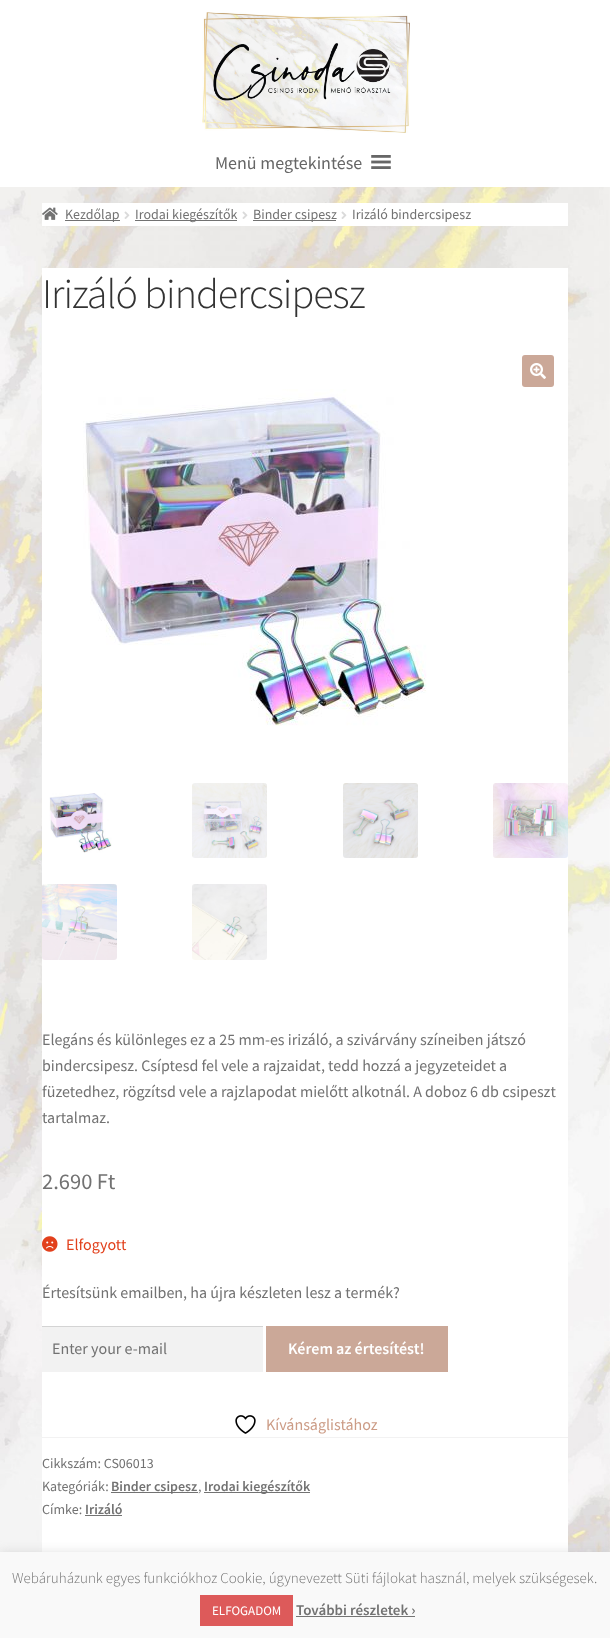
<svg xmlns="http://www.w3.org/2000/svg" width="610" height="1638">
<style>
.a{font:18px Source Sans Pro;fill:#666}
.b{font:14px Source Sans Pro;fill:#727272}
.c{font:300 42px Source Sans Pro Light;letter-spacing:-1px;fill:#333}
.d{font:16px Source Sans Pro;fill:#727272}
.e{font:22.5px Source Sans Pro;fill:#727272}
.f{font:16px Source Sans Pro;fill:#e2401c}
.g{font:600 16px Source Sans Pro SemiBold;fill:#fff}
.h{font:16px Source Sans Pro;fill:#cc9c86}
.i{font:600 14px Source Sans Pro SemiBold;fill:#727272}
.j{font:300 15px Source Sans Pro Light;fill:#727272}
.k{font:13px Source Sans Pro;fill:#fff}
.l{font:600 15px Source Sans Pro SemiBold;fill:#727272}
</style>
<rect width="100%" height="100%" fill="#fff"/>
<image href="1.png" x="0" y="187" width="610" height="1365"/>
<image href="2.png" x="202" y="12" width="208" height="121"/>
<image href="3.png" x="371" y="155" width="20" height="14"/>
<path fill="#fff" d="M42 203h526v23H42z"/>
<image href="4.png" x="42" y="207" width="16" height="13"/>
<path fill="#727272" d="M65 220h55v1H65z"/>
<image href="5.png" x="124" y="211" width="6" height="8"/>
<path fill="#727272" d="M135 220h102v1H135z"/>
<image href="5.png" x="242" y="211" width="6" height="8"/>
<path fill="#727272" d="M253 220h83v1H253z"/>
<image href="5.png" x="341" y="211" width="6" height="8"/>
<path fill="#fff" d="M42 268h526v1284H42z"/>
<rect fill="#cba898" x="522" y="355" width="32" height="32" rx="3"/>
<image href="6.png" x="530" y="363" width="16" height="16"/>
<image href="7.png" x="83" y="389" width="344" height="337"/>
<image href="8.png" x="49" y="793" width="63" height="60"/>
<image href="9.png" x="192" y="783" width="75" height="75"/>
<image href="10.png" x="343" y="783" width="75" height="75"/>
<image href="11.png" x="493" y="783" width="75" height="75"/>
<image href="12.png" x="42" y="884" width="75" height="76"/>
<image href="13.png" x="192" y="884" width="75" height="76"/>
<image href="14.png" x="42" y="1236" width="16" height="16"/>
<path fill="#f2f2f2" d="M42 1327h221v45H42z"/>
<path fill="#d4d4d4" d="M42 1326h221v1H42z"/>
<path fill="#cba898" d="M266 1326h182v46H266z"/>
<image href="15.png" x="235" y="1415" width="21" height="19"/>
<path fill="#f2f2f2" d="M42 1437h526v1H42z"/>
<path fill="#727272" d="M111 1492h87v1H111z"/>
<path fill="#727272" d="M204 1492h106v1H204z"/>
<path fill="#727272" d="M85 1515h37v1H85z"/>
<path fill="#acabab4d" filter="blur(5px)" d="M0 1551h610v86H0z"/>
<path fill="#f9f9f9" d="M0 1552h610v86H0z"/>
<path fill="#dd5a5a" d="M200 1595h93v31H200z"/>
<path fill="#747474" d="M296 1616h119v1H296z"/>
<text class="a" x="215" y="169">Menü megtekintése</text>
<text class="b" x="65" y="219">Kezdőlap</text>
<text class="b" x="135" y="219">Irodai kiegészítők</text>
<text class="b" x="253" y="219">Binder csipesz</text>
<text class="b" x="352" y="219">Irizáló bindercsipesz</text>
<text class="c" x="42" y="308">Irizáló bindercsipesz</text>
<text class="d" x="42" y="1045">Elegáns és különleges ez a 25 mm-es irizáló, a szivárvány színeiben játszó</text>
<text class="d" x="42" y="1071">bindercsipesz. Csíptesd fel vele a rajzaidat, tedd hozzá a jegyzeteidet a</text>
<text class="d" x="42" y="1097">füzetedhez, rögzítsd vele a rajzlapodat mielőtt alkotnál. A doboz 6 db csipeszt</text>
<text class="d" x="42" y="1123">tartalmaz.</text>
<text class="e" x="42" y="1189">2.690 Ft</text>
<text class="f" x="66" y="1250">Elfogyott</text>
<text class="d" x="42" y="1298">Értesítsünk emailben, ha újra készleten lesz a termék?</text>
<text class="d" x="52" y="1354">Enter your e-mail</text>
<text class="g" x="288" y="1354">Kérem az értesítést!</text>
<text class="h" x="266" y="1430">Kívánságlistához</text>
<text class="b" x="42" y="1468">Cikkszám: CS06013</text>
<text class="b" x="42" y="1491">Kategóriák:</text>
<text class="i" x="111" y="1491">Binder csipesz</text>
<text class="b" x="198" y="1491">,</text>
<text class="i" x="204" y="1491">Irodai kiegészítők</text>
<text class="b" x="42" y="1514">Címke:</text>
<text class="i" x="85" y="1514">Irizáló</text>
<text class="j" x="12" y="1583">Webáruházunk egyes funkciókhoz Cookie, úgynevezett Süti fájlokat használ, melyek szükségesek.</text>
<text class="k" x="212" y="1615">ELFOGADOM</text>
<text class="l" x="296" y="1615">További részletek ›</text>
</svg>
